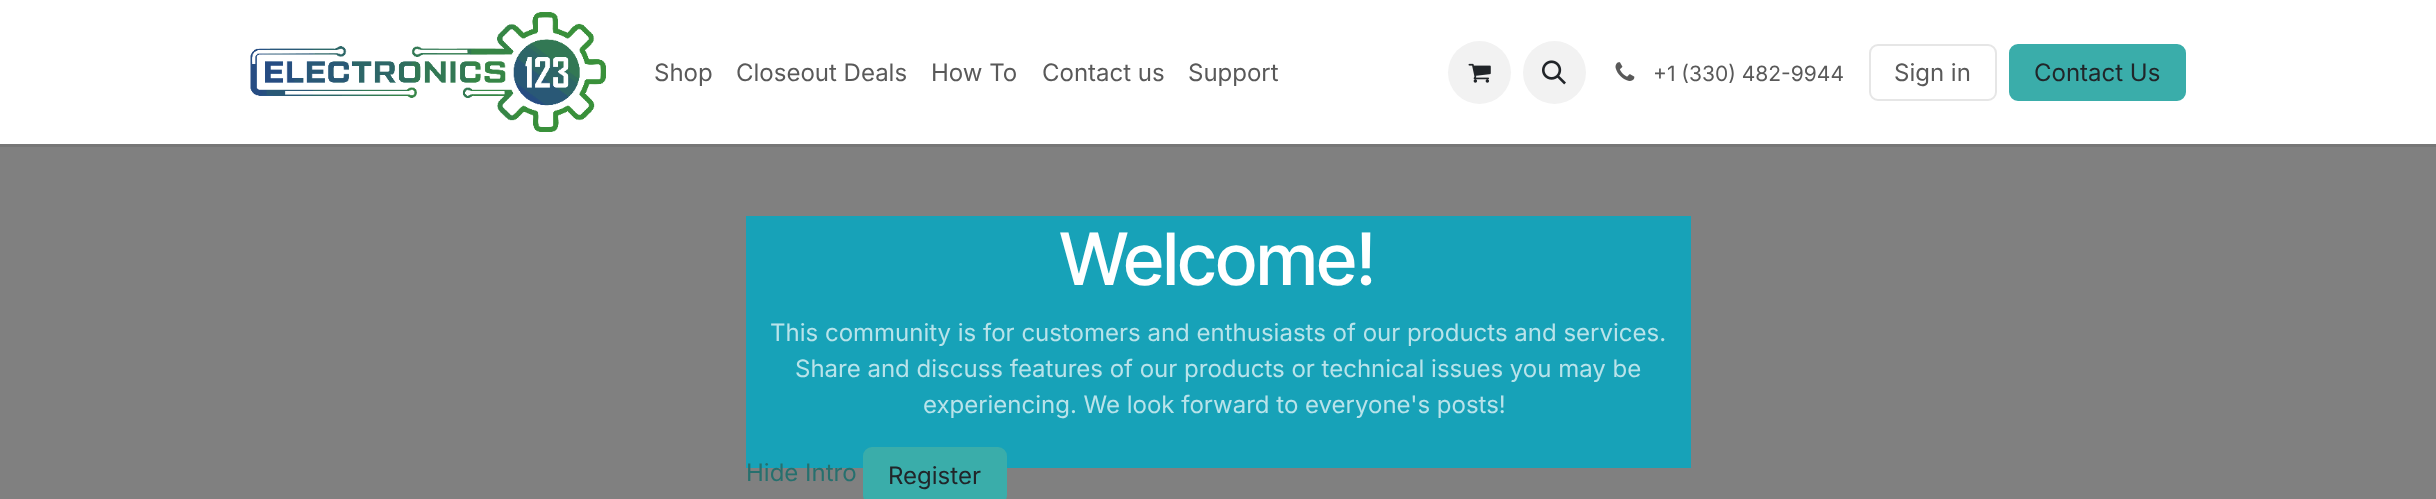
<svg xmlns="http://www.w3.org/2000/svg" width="2436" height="499">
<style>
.a{font:24px Inter;fill:#595959}
.b{font:21px Inter;fill:#595959}
.c{font:24px Inter;fill:#212529}
.d{font:500 72px Inter Tight;fill:#fff}
.e{font:24px Inter;fill:#b9e3ea}
.f{font:24px Inter;fill:#26706e}
</style>
<rect width="100%" height="100%" fill="#fff"/>
<path fill="#767676" d="M0 144h2436v3H0z"/>
<image href="1.png" x="250" y="12" width="356" height="120"/>
<circle fill="#f2f2f2" cx="1479.5" cy="72.5" r="31.5"/>
<image href="2.png" x="1468" y="63" width="23" height="20"/>
<circle fill="#f2f2f2" cx="1554.5" cy="72.5" r="31.5"/>
<image href="3.png" x="1542" y="60" width="24" height="25"/>
<image href="4.png" x="1615" y="62" width="20" height="19"/>
<rect fill="none" stroke="#e6e6e6" stroke-width="2" x="1870" y="45" width="126" height="55" rx="8"/>
<rect fill="#3aadaa" stroke="#3aadaa" stroke-width="2" x="2010" y="45" width="175" height="55" rx="8"/>
<path fill="#808080" d="M0 147h2436v352H0z"/>
<path fill="#17a2b8" d="M746 216h945v252H746z"/>
<rect fill="#3aadaa" stroke="#3aadaa" stroke-width="2" x="864" y="448" width="142" height="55" rx="8"/>
<text class="a" x="654" y="81">Shop</text>
<text class="a" x="736" y="81">Closeout Deals</text>
<text class="a" x="931" y="81">How To</text>
<text class="a" x="1042" y="81">Contact us</text>
<text class="a" x="1188" y="81">Support</text>
<text class="b" x="1653" y="81">+1 (330) 482-9944</text>
<text class="a" x="1894" y="81">Sign in</text>
<text class="c" x="2034" y="81">Contact Us</text>
<text class="d" x="1060" y="285">Welcome!</text>
<text class="e" x="770" y="341">This community is for customers and enthusiasts of our products and services.</text>
<text class="e" x="795" y="377">Share and discuss features of our products or technical issues you may be</text>
<text class="e" x="923" y="413">experiencing. We look forward to everyone's posts!</text>
<text class="f" x="746" y="481">Hide Intro</text>
<text class="c" x="888" y="484">Register</text>
</svg>
